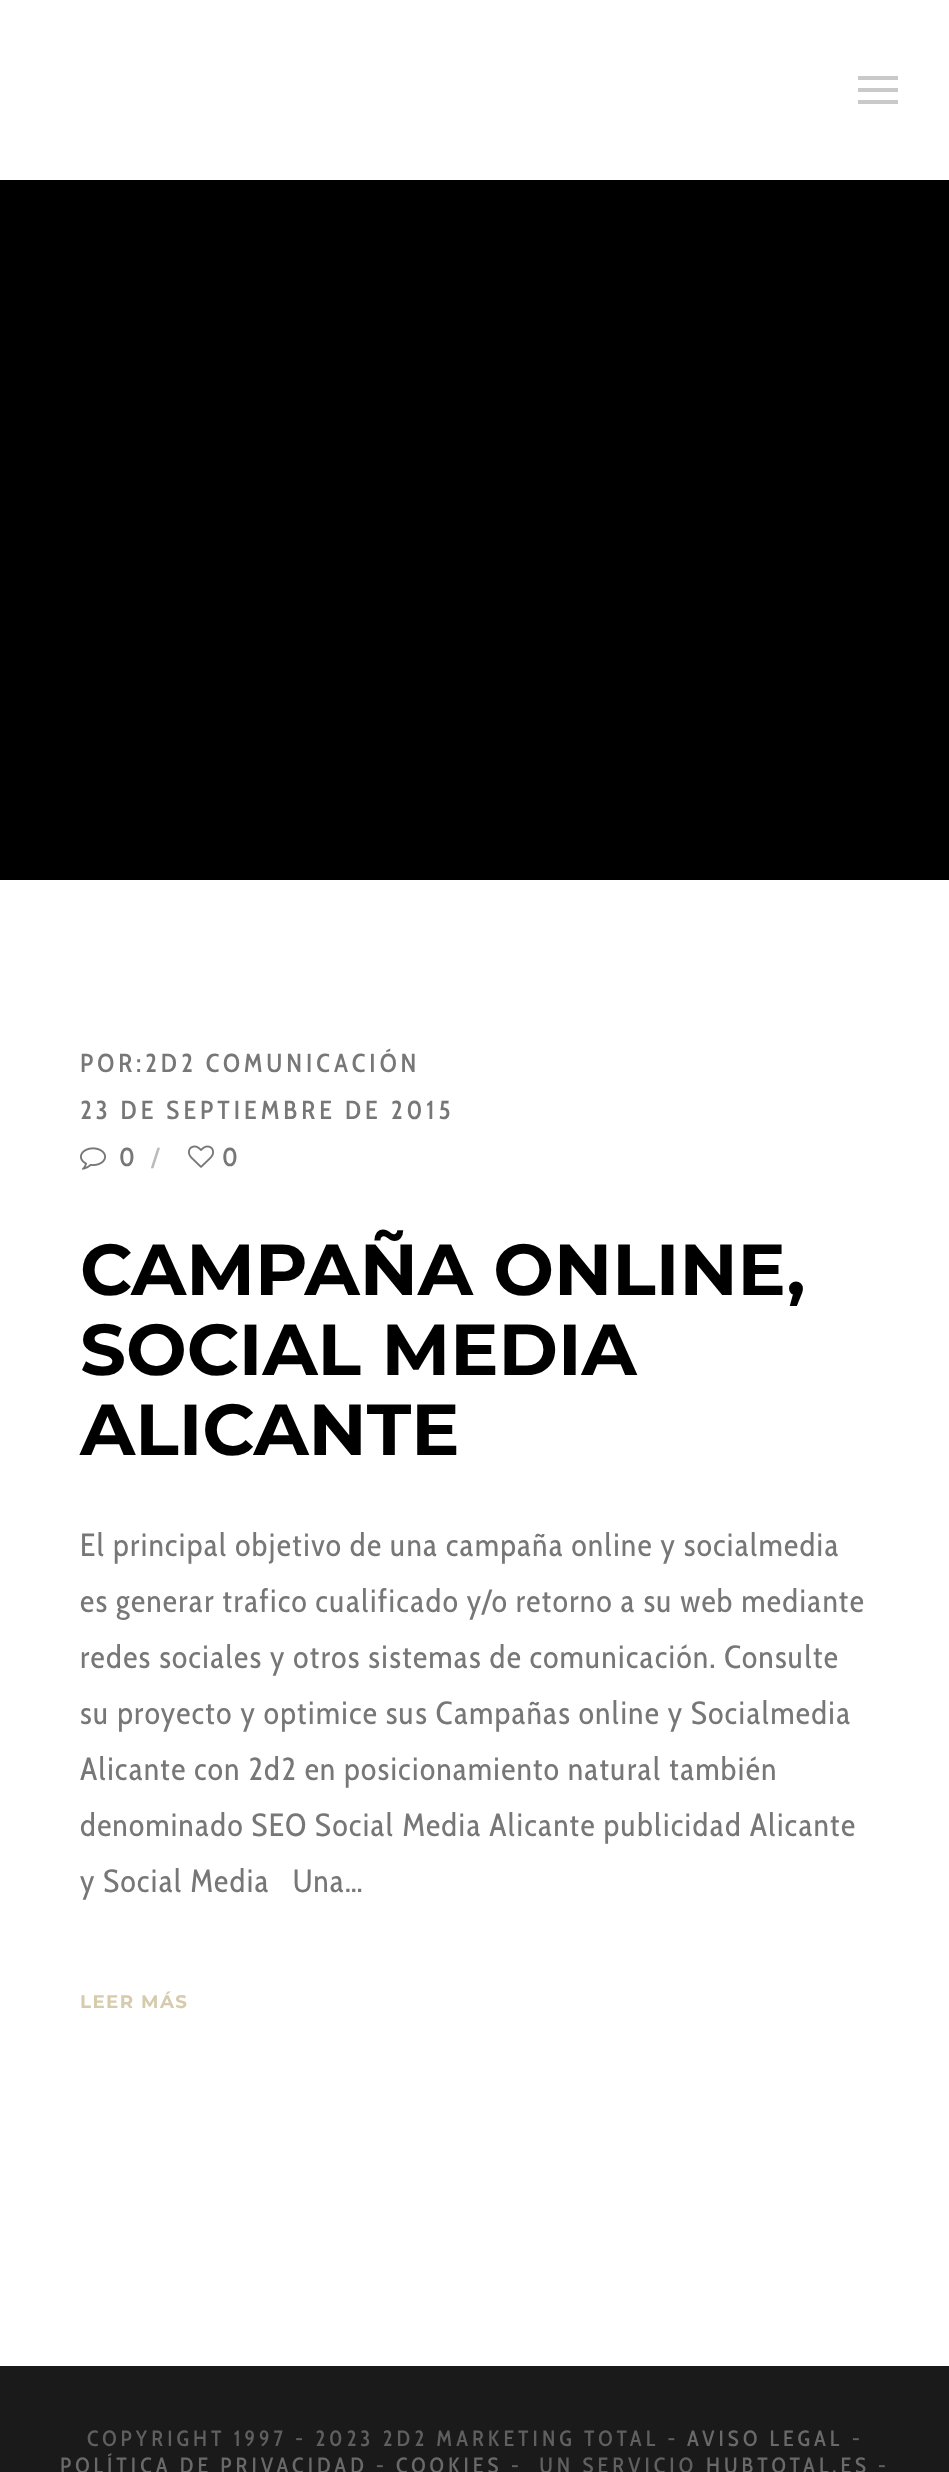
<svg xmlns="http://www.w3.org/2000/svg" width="949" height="2472">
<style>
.a{font:500 26px Cabin Condensed;letter-spacing:4px;fill:#777}
.b{font:500 26px Cabin Condensed;letter-spacing:4px;fill:#bbb}
.c{font:100 72px Montserrat;fill:#000}
.d{font:32px Cabin Condensed;letter-spacing:1.4px;fill:#777}
.e{font:100 18.25px Montserrat;letter-spacing:1.4px;fill:#d6ccad}
.f{font:500 22px Cabin Condensed;letter-spacing:4px;fill:#5f5f5f}
.g{font:500 22px Cabin Condensed;letter-spacing:4px;fill:#696969}
</style>
<rect width="100%" height="100%" fill="#fff"/>
<path fill="#c9c9c9" d="M858 88h40v4h-40zm0-12h40v4h-40zm0 24h40v4h-40z"/>
<path fill="#000" d="M0 180h949v700H0z"/>
<image href="1.png" x="80" y="1147" width="26" height="23"/>
<image href="2.png" x="188" y="1145" width="26" height="23"/>
<path fill="#1a1a1a" d="M0 2366h949v106H0z"/>
<text class="a" x="80" y="1072">POR:2D2 COMUNICACIÓN</text>
<text class="a" x="80" y="1119">23 DE SEPTIEMBRE DE 2015</text>
<text class="a" x="119" y="1166">0</text>
<text class="b" x="151" y="1166">/</text>
<text class="a" x="222" y="1166">0</text>
<text class="c" x="80" y="1295">CAMPAÑA ONLINE,</text>
<text class="c" x="80" y="1375">SOCIAL MEDIA</text>
<text class="c" x="80" y="1455">ALICANTE</text>
<text class="d" x="80" y="1556">El principal objetivo de una campaña online y socialmedia</text>
<text class="d" x="80" y="1612">es generar trafico cualificado y/o retorno a su web mediante</text>
<text class="d" x="80" y="1668">redes sociales y otros sistemas de comunicación. Consulte</text>
<text class="d" x="80" y="1724">su proyecto y optimice sus Campañas online y Socialmedia</text>
<text class="d" x="80" y="1780">Alicante con 2d2 en posicionamiento natural también</text>
<text class="d" x="80" y="1836">denominado SEO Social Media Alicante publicidad Alicante</text>
<text class="d" xml:space="preserve" x="80" y="1892">y Social Media   Una…</text>
<text class="e" x="80" y="2008">LEER MÁS</text>
<text class="f" x="87" y="2446">COPYRIGHT 1997 - 2023 2D2 MARKETING TOTAL -</text>
<text class="g" x="687" y="2446">AVISO LEGAL</text>
<text class="f" x="852" y="2446">-</text>
<text class="g" x="60" y="2473">POLÍTICA DE PRIVACIDAD</text>
<text class="f" x="376" y="2473">-</text>
<text class="g" x="396" y="2473">COOKIES</text>
<text class="f" xml:space="preserve" x="511" y="2473">-  UN SERVICIO</text>
<text class="g" x="706" y="2473">HUBTOTAL.ES</text>
<text class="f" x="878" y="2473">-</text>
</svg>
